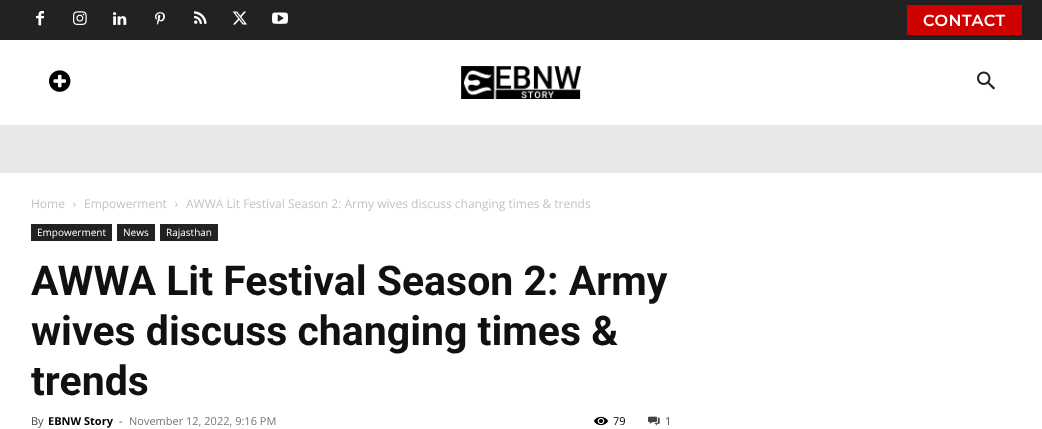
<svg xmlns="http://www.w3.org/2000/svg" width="1042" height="429">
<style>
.a{font:600 16px Montserrat;letter-spacing:0.5px;fill:#fff}
.b{font:12px Open Sans;fill:#c3c3c3}
.c{font:10px Open Sans;fill:#fff}
.d{font:bold 41px Roboto;fill:#111}
.e{font:11px Open Sans;fill:#444}
.f{font:bold 11px Open Sans;fill:#000}
.g{font:11px Open Sans;fill:#767676}
.h{font:11px Open Sans;fill:#000}
</style>
<rect width="100%" height="100%" fill="#fff"/>
<path fill="#222" d="M0 0h1042v40H0z"/>
<image href="1.png" x="36" y="10" width="8" height="16"/>
<image href="2.png" x="73" y="11" width="14" height="14"/>
<image href="3.png" x="113" y="12" width="14" height="13"/>
<image href="4.png" x="155" y="12" width="10" height="13"/>
<image href="5.png" x="194" y="11" width="13" height="13"/>
<image href="6.png" x="232" y="11" width="15" height="14"/>
<image href="7.png" x="272" y="12" width="16" height="12"/>
<path fill="#ce0000" d="M907 5h115v30H907z"/>
<image href="8.png" x="49" y="70" width="22" height="22"/>
<image href="9.png" x="461" y="66" width="120" height="33"/>
<image href="10.png" x="977" y="71" width="18" height="19"/>
<path fill="#e8e8e8" d="M0 125h1042v48H0z"/>
<image href="11.png" x="73" y="202" width="3" height="5"/>
<image href="11.png" x="175" y="202" width="3" height="5"/>
<path fill="#222" d="M31 224h81v17H31z"/>
<path fill="#222" d="M117 224h38v17H117z"/>
<path fill="#222" d="M160 224h58v17H160z"/>
<image href="12.png" x="594" y="416" width="14" height="10"/>
<image href="13.png" x="648" y="416" width="12" height="10"/>
<text class="a" x="923" y="26">CONTACT</text>
<text class="b" x="31" y="208">Home</text>
<text class="b" x="84" y="208">Empowerment</text>
<text class="b" x="186" y="208">AWWA Lit Festival Season 2: Army wives discuss changing times &amp; trends</text>
<text class="c" x="37" y="236">Empowerment</text>
<text class="c" x="123" y="236">News</text>
<text class="c" x="166" y="236">Rajasthan</text>
<text class="d" x="31" y="295">AWWA Lit Festival Season 2: Army</text>
<text class="d" x="31" y="345">wives discuss changing times &amp;</text>
<text class="d" x="31" y="395">trends</text>
<text class="e" x="31" y="425">By</text>
<text class="f" x="48" y="425">EBNW Story</text>
<text class="e" x="119" y="425">-</text>
<text class="g" x="129" y="425">November 12, 2022, 9:16 PM</text>
<text class="h" x="613" y="425">79</text>
<text class="e" x="665" y="425">1</text>
</svg>
